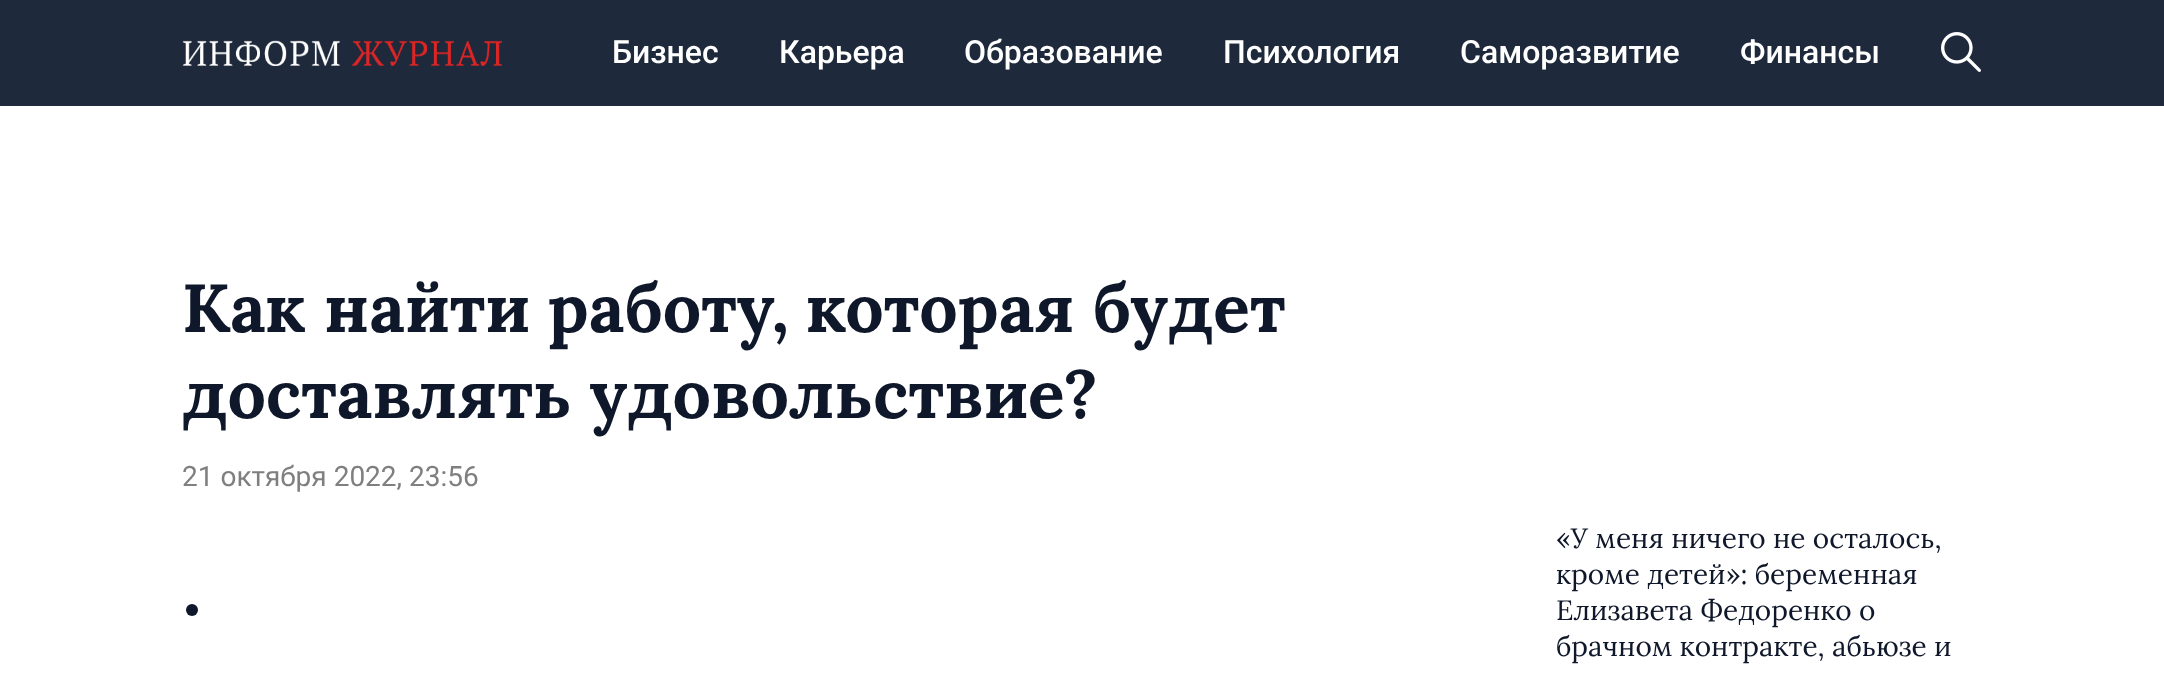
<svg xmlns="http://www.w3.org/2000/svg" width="2164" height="679">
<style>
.a{font:500 32px Roboto;fill:#fff}
.b{font:bold 68px Lora;fill:#0f172a}
.c{font:28px Roboto;fill:#7f7f7f}
.d{font:28px Lora;fill:#0f172a}
</style>
<rect width="100%" height="100%" fill="#fff"/>
<path fill="#1e293b" d="M0 0h2164v106H0z"/>
<image href="1.png" x="182" y="40" width="320" height="26"/>
<image href="2.png" x="1941" y="32" width="40" height="40"/>
<circle fill="#0f172a" cx="192" cy="610" r="6"/>
<text class="a" x="612" y="63">Бизнес</text>
<text class="a" x="779" y="63">Карьера</text>
<text class="a" x="964" y="63">Образование</text>
<text class="a" x="1223" y="63">Психология</text>
<text class="a" x="1460" y="63">Саморазвитие</text>
<text class="a" x="1740" y="63">Финансы</text>
<text class="b" x="182" y="332">Как найти работу, которая будет</text>
<text class="b" x="182" y="418">доставлять удовольствие?</text>
<text class="c" x="182" y="486">21 октября 2022, 23:56</text>
<text class="d" x="1556" y="548">«У меня ничего не осталось,</text>
<text class="d" x="1556" y="584">кроме детей»: беременная</text>
<text class="d" x="1556" y="620">Елизавета Федоренко о</text>
<text class="d" x="1556" y="656">брачном контракте, абьюзе и</text>
</svg>
